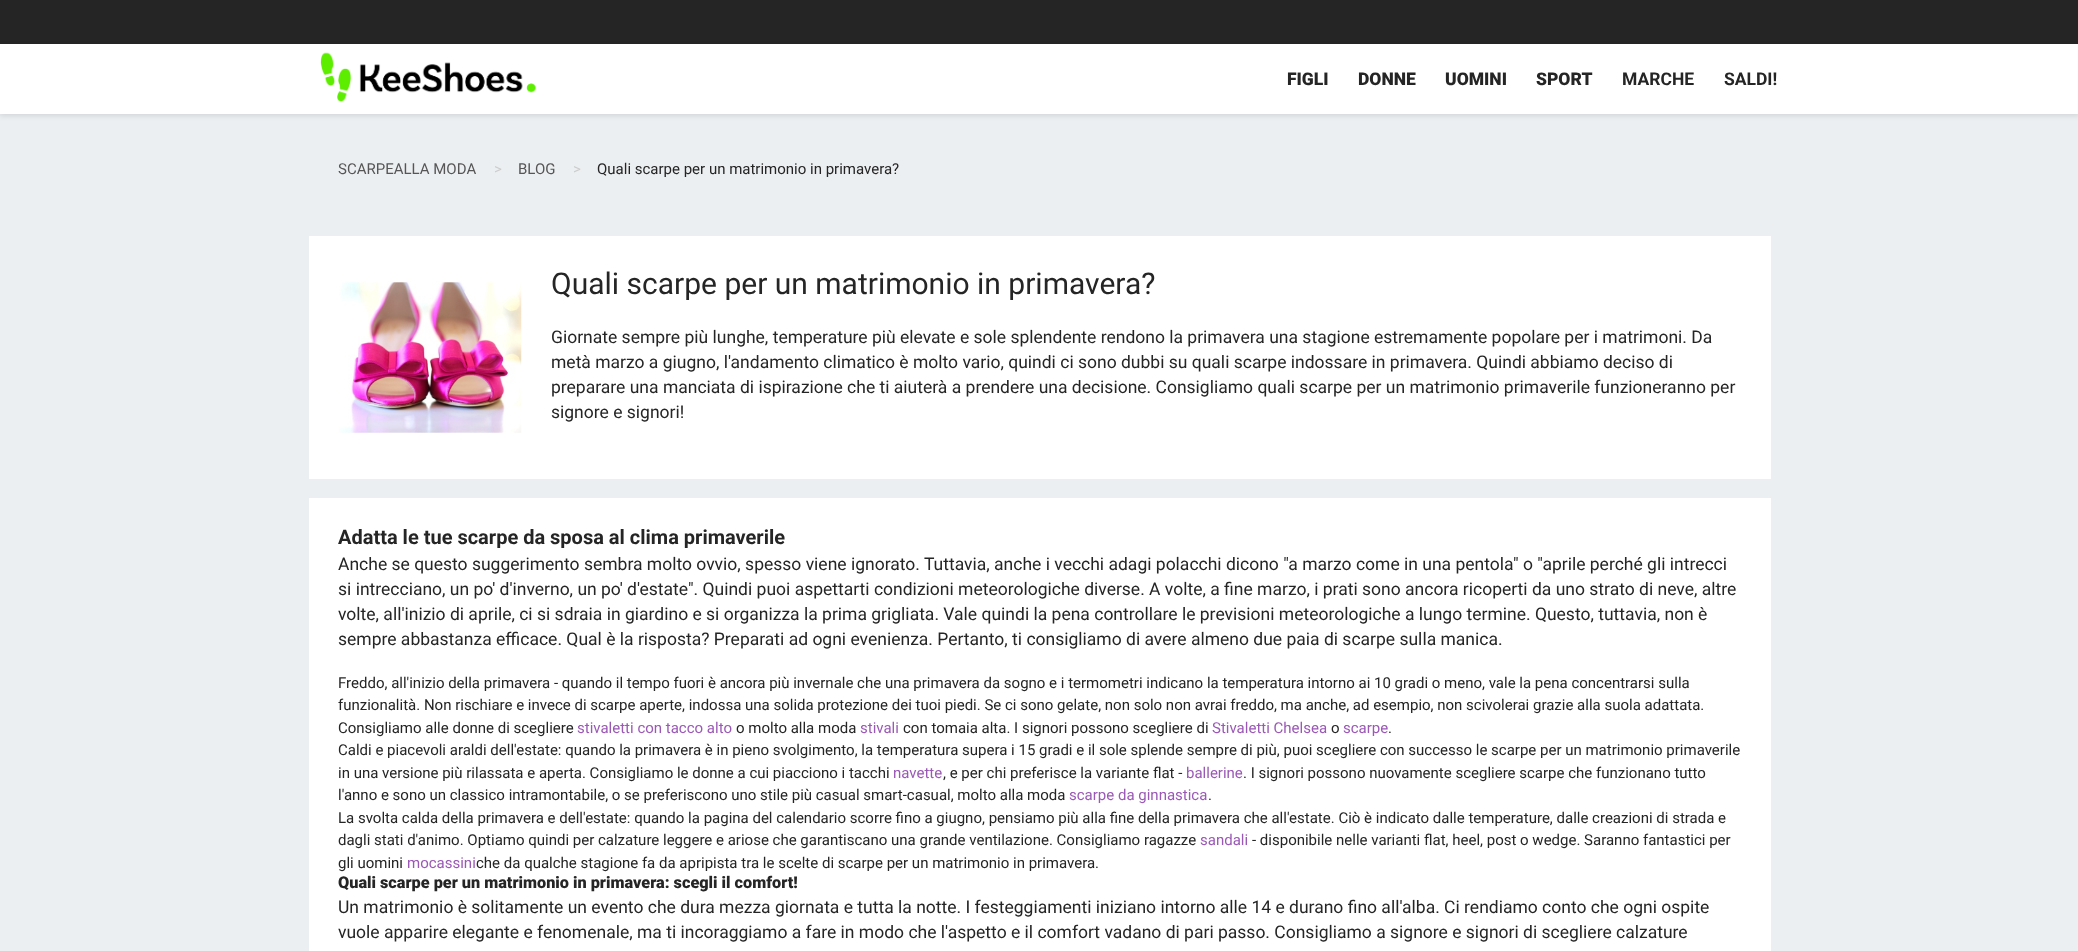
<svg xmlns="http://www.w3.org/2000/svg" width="2078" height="951">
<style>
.a{font:900 17.5px Roboto;fill:#252525}
.b{font:bold 17.5px Roboto;fill:#252525}
.c{font:15px Roboto;fill:#565656}
.d{font:15px Roboto;fill:#ccc}
.e{font:15px Roboto;fill:#252525}
.f{font:30px Roboto;fill:#252525}
.g{font:17.5px Roboto;fill:#252525}
.h{font:bold 20px Roboto;fill:#252525}
.i{font:15px Roboto;fill:#9b59b6}
.j{font:900 16.25px Roboto;fill:#252525}
</style>
<rect width="100%" height="100%" fill="#eceff1"/>
<path fill="#252525" d="M0 0h2078v44H0z"/>
<path fill="#0000001a" filter="blur(2.5px)" d="M0 46h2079v70H0z"/>
<path fill="#fff" d="M0 44h2078v70H0z"/>
<image href="1.png" x="320" y="52" width="217" height="51"/>
<path fill="#fff" d="M309 236h1462v243H309z"/>
<image href="2.png" x="339" y="281" width="183" height="152"/>
<path fill="#fff" d="M309 498h1462v453H309z"/>
<text class="a" x="1287" y="85">FIGLI</text>
<text class="a" x="1358" y="85">DONNE</text>
<text class="a" x="1445" y="85">UOMINI</text>
<text class="a" x="1536" y="85">SPORT</text>
<text class="b" x="1622" y="85">MARCHE</text>
<text class="b" x="1724" y="85">SALDI!</text>
<text class="c" x="338" y="174">SCARPEALLA MODA</text>
<text class="d" x="494" y="174">&gt;</text>
<text class="c" x="518" y="174">BLOG</text>
<text class="d" x="573" y="174">&gt;</text>
<text class="e" x="597" y="174">Quali scarpe per un matrimonio in primavera?</text>
<text class="f" x="551" y="294">Quali scarpe per un matrimonio in primavera?</text>
<text class="g" x="551" y="343">Giornate sempre più lunghe, temperature più elevate e sole splendente rendono la primavera una stagione estremamente popolare per i matrimoni. Da</text>
<text class="g" x="551" y="368">metà marzo a giugno, l'andamento climatico è molto vario, quindi ci sono dubbi su quali scarpe indossare in primavera. Quindi abbiamo deciso di</text>
<text class="g" x="551" y="393">preparare una manciata di ispirazione che ti aiuterà a prendere una decisione. Consigliamo quali scarpe per un matrimonio primaverile funzioneranno per</text>
<text class="g" x="551" y="418">signore e signori!</text>
<text class="h" x="338" y="544">Adatta le tue scarpe da sposa al clima primaverile</text>
<text class="g" x="338" y="570">Anche se questo suggerimento sembra molto ovvio, spesso viene ignorato. Tuttavia, anche i vecchi adagi polacchi dicono "a marzo come in una pentola" o "aprile perché gli intrecci</text>
<text class="g" x="338" y="595">si intrecciano, un po' d'inverno, un po' d'estate". Quindi puoi aspettarti condizioni meteorologiche diverse. A volte, a fine marzo, i prati sono ancora ricoperti da uno strato di neve, altre</text>
<text class="g" x="338" y="620">volte, all'inizio di aprile, ci si sdraia in giardino e si organizza la prima grigliata. Vale quindi la pena controllare le previsioni meteorologiche a lungo termine. Questo, tuttavia, non è</text>
<text class="g" x="338" y="645">sempre abbastanza efficace. Qual è la risposta? Preparati ad ogni evenienza. Pertanto, ti consigliamo di avere almeno due paia di scarpe sulla manica.</text>
<text class="e" x="338" y="688">Freddo, all'inizio della primavera - quando il tempo fuori è ancora più invernale che una primavera da sogno e i termometri indicano la temperatura intorno ai 10 gradi o meno, vale la pena concentrarsi sulla</text>
<text class="e" x="338" y="710">funzionalità. Non rischiare e invece di scarpe aperte, indossa una solida protezione dei tuoi piedi. Se ci sono gelate, non solo non avrai freddo, ma anche, ad esempio, non scivolerai grazie alla suola adattata.</text>
<text class="e" x="338" y="733">Consigliamo alle donne di scegliere</text>
<text class="i" x="577" y="733">stivaletti con tacco alto</text>
<text class="e" x="736" y="733">o molto alla moda</text>
<text class="i" x="860" y="733">stivali</text>
<text class="e" x="903" y="733">con tomaia alta. I signori possono scegliere di</text>
<text class="i" x="1212" y="733">Stivaletti Chelsea</text>
<text class="e" x="1331" y="733">o</text>
<text class="i" x="1343" y="733">scarpe</text>
<text class="e" x="1388" y="733">.</text>
<text class="e" x="338" y="755">Caldi e piacevoli araldi dell'estate: quando la primavera è in pieno svolgimento, la temperatura supera i 15 gradi e il sole splende sempre di più, puoi scegliere con successo le scarpe per un matrimonio primaverile</text>
<text class="e" x="338" y="778">in una versione più rilassata e aperta. Consigliamo le donne a cui piacciono i tacchi</text>
<text class="i" x="893" y="778">navette</text>
<text class="e" x="943" y="778">, e per chi preferisce la variante flat -</text>
<text class="i" x="1186" y="778">ballerine</text>
<text class="e" x="1243" y="778">. I signori possono nuovamente scegliere scarpe che funzionano tutto</text>
<text class="e" x="338" y="800">l'anno e sono un classico intramontabile, o se preferiscono uno stile più casual smart-casual, molto alla moda</text>
<text class="i" x="1069" y="800">scarpe da ginnastica</text>
<text class="e" x="1208" y="800">.</text>
<text class="e" x="338" y="823">La svolta calda della primavera e dell'estate: quando la pagina del calendario scorre fino a giugno, pensiamo più alla fine della primavera che all'estate. Ciò è indicato dalle temperature, dalle creazioni di strada e</text>
<text class="e" x="338" y="845">dagli stati d'animo. Optiamo quindi per calzature leggere e ariose che garantiscano una grande ventilazione. Consigliamo ragazze</text>
<text class="i" x="1200" y="845">sandali</text>
<text class="e" x="1252" y="845">- disponibile nelle varianti flat, heel, post o wedge. Saranno fantastici per</text>
<text class="e" x="338" y="868">gli uomini</text>
<text class="i" x="407" y="868">mocassini</text>
<text class="e" x="476" y="868">che da qualche stagione fa da apripista tra le scelte di scarpe per un matrimonio in primavera.</text>
<text class="j" x="338" y="888">Quali scarpe per un matrimonio in primavera: scegli il comfort!</text>
<text class="g" x="338" y="913">Un matrimonio è solitamente un evento che dura mezza giornata e tutta la notte. I festeggiamenti iniziano intorno alle 14 e durano fino all'alba. Ci rendiamo conto che ogni ospite</text>
<text class="g" x="338" y="938">vuole apparire elegante e fenomenale, ma ti incoraggiamo a fare in modo che l'aspetto e il comfort vadano di pari passo. Consigliamo a signore e signori di scegliere calzature</text>
</svg>
